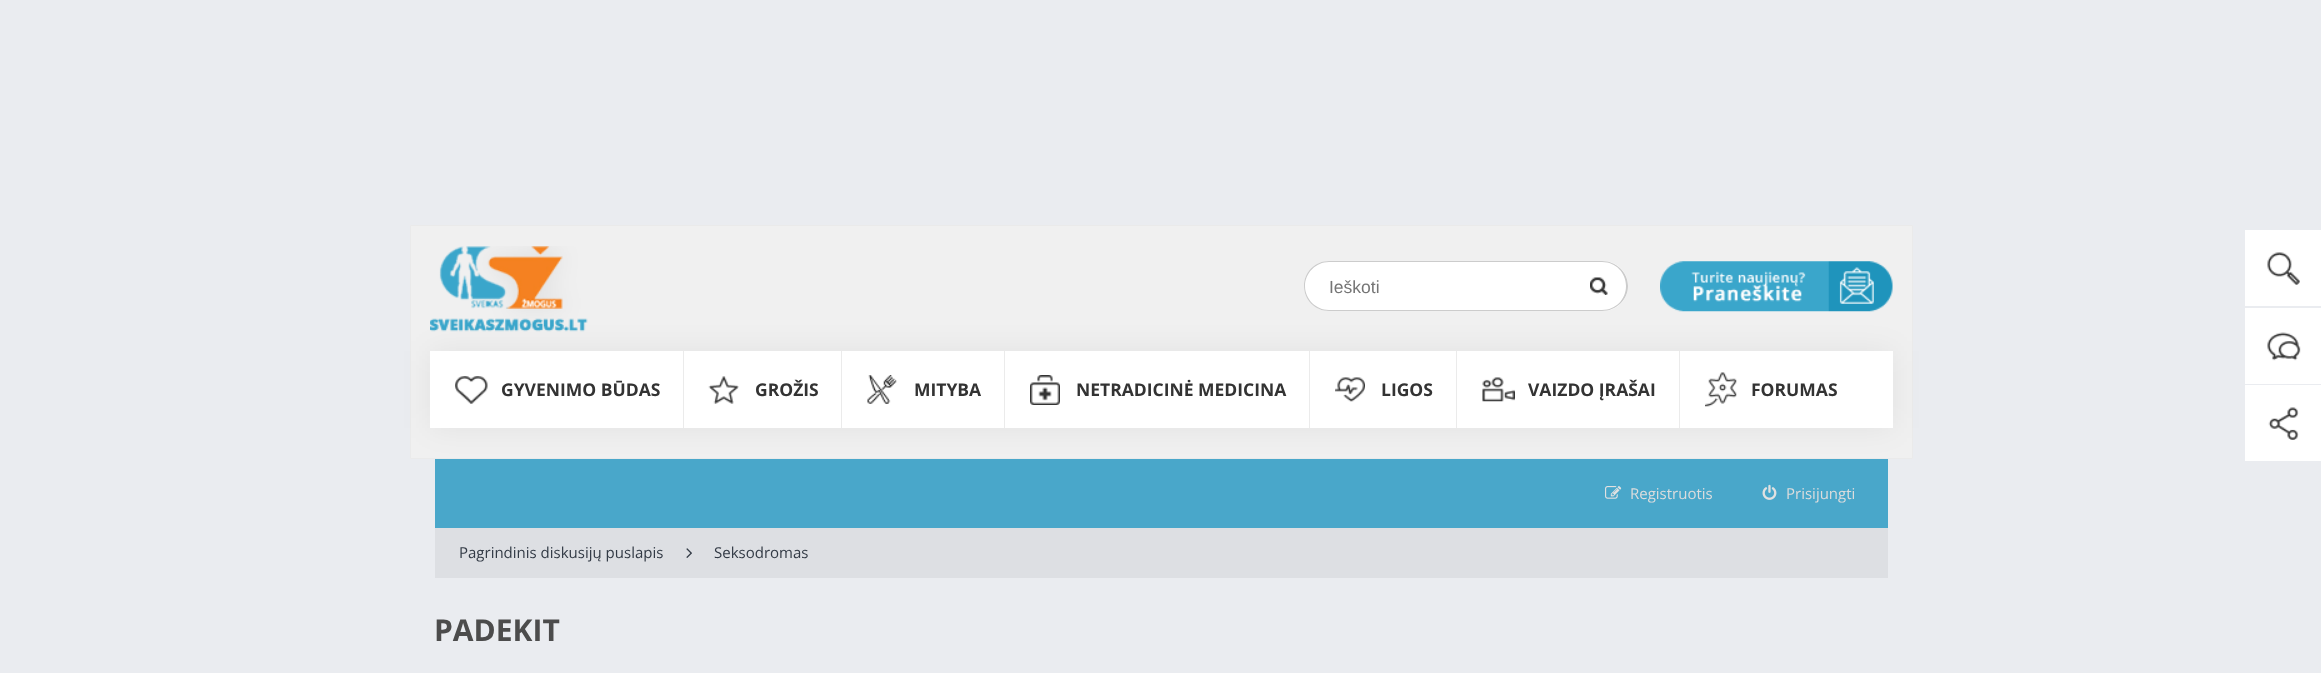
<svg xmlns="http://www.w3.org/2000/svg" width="2321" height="673">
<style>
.a{font:17.5px Liberation Sans;fill:#757575}
.b{font:bold 17.5px Open Sans;fill:#333}
.c{font:15px Open Sans;fill:#ddd}
.d{font:15px Open Sans;fill:#323a45}
.e{font:bold 30px Open Sans;fill:#4c4c4c}
</style>
<rect width="100%" height="100%" fill="#eaecf0"/>
<path fill="#f0f0f0" stroke="#eaeaea" d="M410.5 225.5h1502v233H410.5z"/>
<image href="1.png" x="430" y="246" width="158" height="86"/>
<path fill="#fff" d="M1329 261h244v50h-244c-14 0-25-11-25-25c0-14 11-25 25-25z"/>
<path fill="#ccc" fill-rule="evenodd" d="M1329 261h243v50h-243c-14 0-25-11-25-25c0-14 11-25 25-25zm0 1h243v48h-243c-13 0-24-11-24-24c0-13 11-24 24-24z"/>
<path fill="#fff" d="M1573 261h30c14 0 25 11 25 25c0 14-11 25-25 25h-30z"/>
<image href="2.png" x="1590" y="277" width="18" height="18"/>
<path fill="#ccc" fill-rule="evenodd" d="M1572 261h30c14 0 26 11 26 25c0 14-12 25-26 25h-30zm0 1h30c14 0 24 11 24 24c0 13-10 24-24 24h-30z"/>
<image href="3.png" x="1660" y="261" width="233" height="51"/>
<path fill="#fff" d="M2245 230h76v76H2245z"/>
<image href="4.png" x="2267" y="252" width="33" height="33"/>
<path fill="#fff" d="M2245 308h76v76H2245z"/>
<image href="5.png" x="2267" y="332" width="34" height="29"/>
<path fill="#fff" d="M2245 385h76v76H2245z"/>
<image href="6.png" x="2268" y="407" width="31" height="33"/>
<path fill="#49a7ca" d="M435 459h1453v69H435z"/>
<path fill="#0000000f" filter="blur(15px)" d="M430 351h1463v77H430z"/>
<path fill="#fff" d="M430 351h1463v77H430z"/>
<image href="7.png" x="455" y="376" width="33" height="28"/>
<path fill="#ebebeb" d="M683 351h1v77H683z"/>
<image href="8.png" x="708" y="376" width="31" height="28"/>
<path fill="#ebebeb" d="M841 351h1v77H841z"/>
<image href="9.png" x="867" y="375" width="30" height="29"/>
<path fill="#ebebeb" d="M1004 351h1v77H1004z"/>
<image href="10.png" x="1030" y="375" width="30" height="30"/>
<path fill="#ebebeb" d="M1309 351h1v77H1309z"/>
<image href="11.png" x="1335" y="377" width="30" height="25"/>
<path fill="#ebebeb" d="M1456 351h1v77H1456z"/>
<image href="12.png" x="1482" y="377" width="33" height="25"/>
<path fill="#ebebeb" d="M1679 351h1v77H1679z"/>
<image href="13.png" x="1705" y="372" width="32" height="35"/>
<image href="14.png" x="1605" y="486" width="17" height="13"/>
<image href="15.png" x="1762" y="484" width="15" height="16"/>
<path fill="#dddfe3" d="M435 528h1453v50H435z"/>
<image href="16.png" x="686" y="548" width="6" height="10"/>
<text class="a" x="1329" y="293">Ieškoti</text>
<text class="b" x="501" y="396">GYVENIMO BŪDAS</text>
<text class="b" x="755" y="396">GROŽIS</text>
<text class="b" x="914" y="396">MITYBA</text>
<text class="b" x="1076" y="396">NETRADICINĖ MEDICINA</text>
<text class="b" x="1381" y="396">LIGOS</text>
<text class="b" x="1528" y="396">VAIZDO ĮRAŠAI</text>
<text class="b" x="1751" y="396">FORUMAS</text>
<text class="c" x="1630" y="499">Registruotis</text>
<text class="c" x="1786" y="499">Prisijungti</text>
<text class="d" x="459" y="558">Pagrindinis diskusijų puslapis</text>
<text class="d" x="714" y="558">Seksodromas</text>
<text class="e" x="434" y="641">PADEKIT</text>
</svg>
